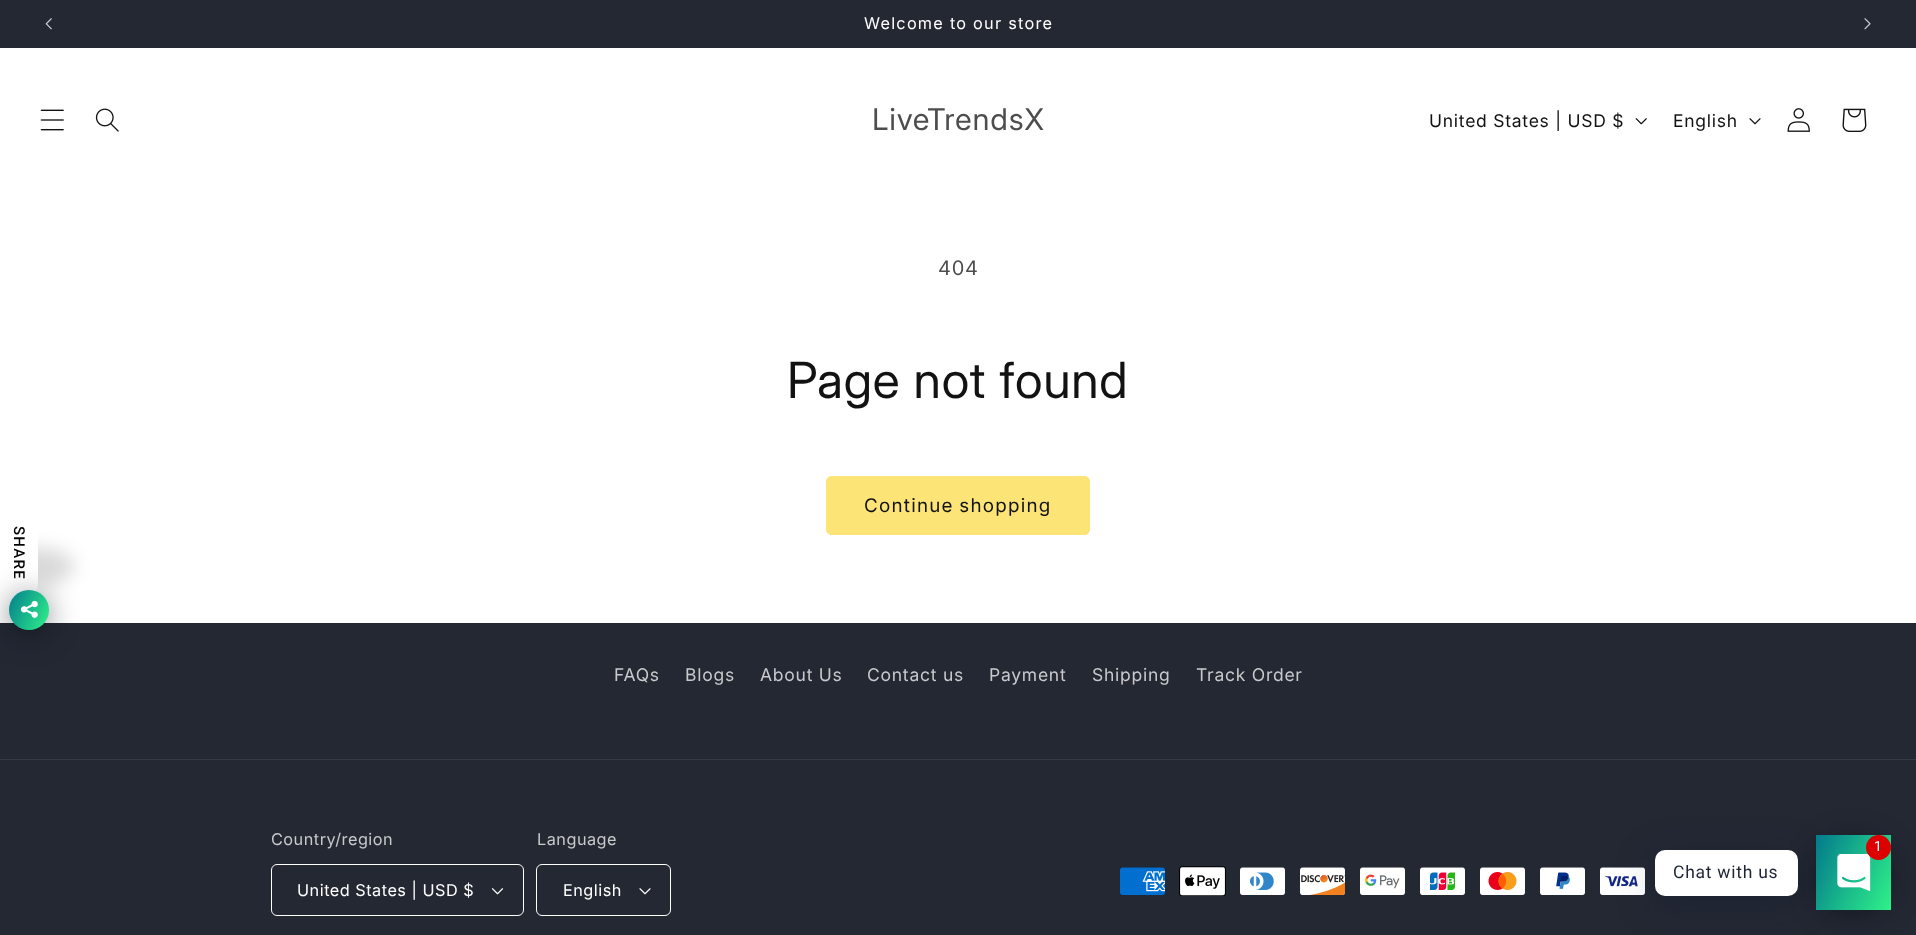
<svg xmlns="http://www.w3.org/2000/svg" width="1916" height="935">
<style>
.a{font:16.25px Inter;letter-spacing:1.25px;fill:#fff}
.b{font:30px 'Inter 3';letter-spacing:0.75px;fill:#4d4d4d}
.c{font:17.5px Inter;letter-spacing:0.75px;fill:#121212}
.d{font:20px Inter;letter-spacing:0.75px;fill:#4d4d4d}
.e{font:50px 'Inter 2';letter-spacing:0.75px;fill:#121212}
.f{font:18.75px Inter;letter-spacing:1.25px;fill:#121212}
.g{font:500 15px Roboto;letter-spacing:1.25px;fill:#000}
.h{font:14px Roboto;letter-spacing:0.75px;fill:#fff}
.i{font:17.5px Roboto;letter-spacing:0.75px;fill:#1e2433}
.j{font:17.5px Inter;letter-spacing:0.75px;fill:#c8c9cc}
.k{font:16.25px Inter;letter-spacing:0.5px;fill:#c8c9cc}
.l{font:16.25px Inter;letter-spacing:0.5px;fill:#fff}
</style>
<defs>
<linearGradient id="g1" gradientUnits="userSpaceOnUse" x1="4.7" y1="599" x2="53" y2="621"><stop offset="0" stop-color="#047c8d"/><stop offset="1" stop-color="#2ff289"/></linearGradient>
<linearGradient id="g2" gradientUnits="userSpaceOnUse" x1="1809" y1="851" x2="1899" y2="894"><stop offset="0" stop-color="#047c8d"/><stop offset="1" stop-color="#2ff289"/></linearGradient>
</defs>
<rect width="100%" height="100%" fill="#fff"/>
<path fill="#242833" d="M0 0h1916v48H0z"/>
<image href="1.png" x="45" y="18" width="7" height="12"/>
<image href="2.png" x="1864" y="18" width="7" height="12"/>
<image href="3.png" x="40" y="109" width="24" height="22"/>
<image href="4.png" x="95" y="108" width="24" height="24"/>
<image href="5.png" x="1635" y="118" width="12" height="7"/>
<image href="6.png" x="1749" y="118" width="12" height="7"/>
<image href="7.png" x="1787" y="108" width="23" height="24"/>
<image href="8.png" x="1842" y="108" width="25" height="24"/>
<rect fill="#fce477" x="826" y="476" width="264" height="59" rx="6"/>
<rect fill="none" stroke="#fce477" x="826.5" y="476.5" width="263" height="58" rx="5.5"/>
<rect fill="#00000026" filter="blur(9px)" x="-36" y="548" width="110" height="37" rx="35"/>
<path fill="#fff" d="M0 617v-110h32c3 0 6 2 6 5v70c0 19-16 35-36 35z"/>
<path fill="#242833" d="M0 623h1916v312H0z"/>
<rect fill="#02061080" filter="blur(15px)" x="9" y="595" width="40" height="40" rx="20"/>
<circle fill="url(#g1)" cx="29" cy="610" r="20"/>
<image href="9.png" x="20" y="600" width="18" height="18"/>
<rect fill="#02061080" filter="blur(15px)" x="1816" y="840" width="75" height="75" rx="37.5"/>
<path fill="url(#g2)" d="M1816 835h75v75H1816z"/>
<image href="21.png" x="1600" y="867" width="45" height="28"/>
<rect fill="#00122e3d" filter="blur(20px)" x="1655" y="858" width="143" height="46" rx="10"/>
<image href="10.png" x="1837" y="854" width="34" height="37"/>
<circle fill="#d00" cx="1878.5" cy="847.5" r="12.5"/>
<rect fill="#fff" x="1655" y="850" width="143" height="46" rx="10"/>
<path fill="#363943" d="M0 759h1916v1H0z"/>
<image href="11.png" x="491" y="888" width="13" height="7"/>
<rect fill="none" stroke="#fff" x="271.5" y="864.5" width="252" height="51" rx="5.5"/>
<image href="12.png" x="639" y="888" width="12" height="7"/>
<rect fill="none" stroke="#fff" x="536.5" y="864.5" width="134" height="51" rx="5.5"/>
<image href="13.png" x="1120" y="867" width="45" height="28"/>
<image href="14.png" x="1179" y="866" width="47" height="30"/>
<image href="15.png" x="1240" y="867" width="45" height="28"/>
<image href="16.png" x="1300" y="867" width="45" height="28"/>
<image href="17.png" x="1360" y="867" width="45" height="28"/>
<image href="18.png" x="1420" y="867" width="45" height="28"/>
<image href="19.png" x="1480" y="867" width="45" height="28"/>
<image href="20.png" x="1540" y="867" width="45" height="28"/>
<text class="a" x="864" y="29">Welcome to our store</text>
<text class="b" x="872" y="130">LiveTrendsX</text>
<text class="c" x="1429" y="127">United States | USD $</text>
<text class="c" x="1673" y="127">English</text>
<text class="d" x="938" y="275">404</text>
<text class="e" x="787" y="398">Page not found</text>
<text class="f" x="864" y="512" word-spacing="-1">Continue shopping</text>
<text class="g" x="14" y="526" transform="rotate(90 14 526)">SHARE</text>
<text class="h" x="1874" y="851">1</text>
<text class="i" x="1673" y="878">Chat with us</text>
<text class="j" x="614" y="681">FAQs</text>
<text class="j" x="685" y="681">Blogs</text>
<text class="j" x="760" y="681">About Us</text>
<text class="j" x="867" y="681">Contact us</text>
<text class="j" x="989" y="681">Payment</text>
<text class="j" x="1092" y="681">Shipping</text>
<text class="j" x="1196" y="681">Track Order</text>
<text class="k" x="271" y="845">Country/region</text>
<text class="l" x="297" y="896">United States | USD $</text>
<text class="k" x="537" y="845">Language</text>
<text class="l" x="563" y="896">English</text>
</svg>
